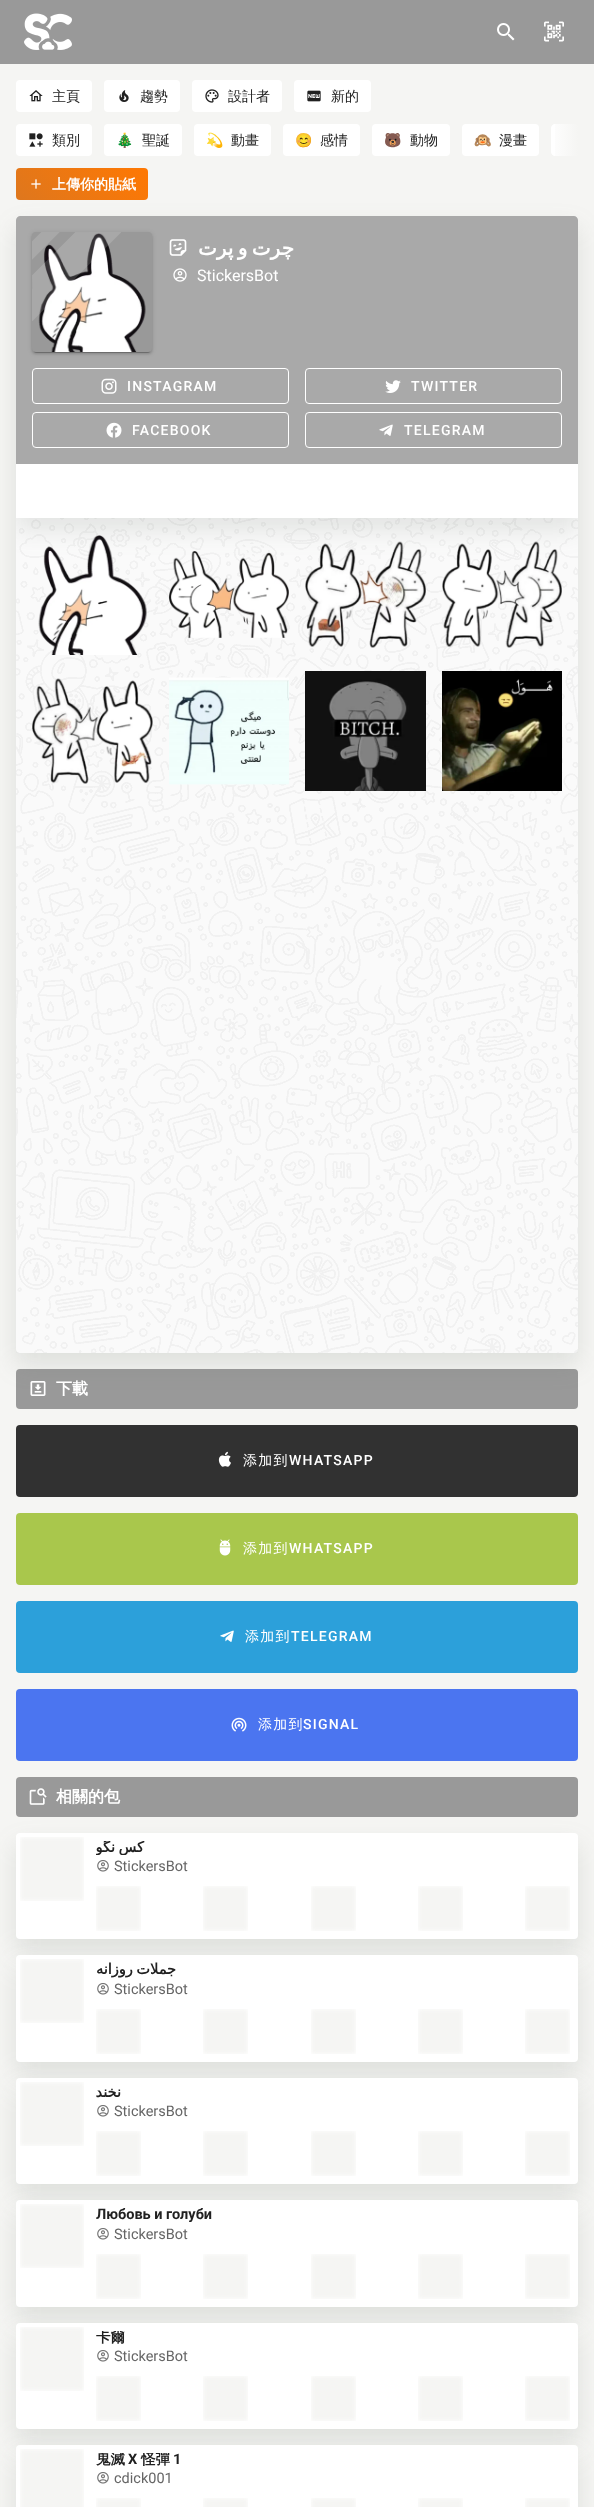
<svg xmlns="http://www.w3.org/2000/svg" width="594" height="2507">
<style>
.a{font:500 14px WenQuanYi Zen Hei;fill:#212121}
.b{font:14px Noto Color Emoji;fill:#212121}
.c{font:bold 14px WenQuanYi Zen Hei;fill:#fff}
.d{font:bold 20px DejaVu Sans;letter-spacing:0.25px;direction:rtl;fill:#fff}
.e{font:16px Roboto;fill:#fff}
.f{font:500 14px Roboto;letter-spacing:1.25px;fill:#fff}
.g{font:bold 16px WenQuanYi Zen Hei;fill:#fff}
.h{font:500 14px WenQuanYi Zen Hei;letter-spacing:1.25px;fill:#fff}
.i{font:bold 14.5px DejaVu Sans;direction:rtl;fill:#212121}
.j{font:14.5px Roboto;fill:#666}
.k{font:bold 14.5px Roboto;fill:#212121}
.l{font:bold 14.5px WenQuanYi Zen Hei;fill:#212121}
</style>
<defs>
<linearGradient id="g1" gradientUnits="userSpaceOnUse" x1="548" y1="140" x2="578" y2="140"><stop offset="0" stop-color="#f5f5f3" stop-opacity="0"/><stop offset="1" stop-color="#f5f5f3"/></linearGradient>
<linearGradient id="g2" gradientUnits="userSpaceOnUse" x1="41" y1="225" x2="123" y2="143"><stop offset="0" stop-color="#de771e"/><stop offset="1" stop-color="#ff7802"/></linearGradient>
<clipPath id="clip1"><rect x="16" y="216" width="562" height="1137" rx="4"/></clipPath>
<clipPath id="clip2"><path d="M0 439h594v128h-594zm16 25h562v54h-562z" clip-rule="evenodd"/></clipPath>
<clipPath id="clip3"><path d="M96 1841h474v14H96z"/></clipPath>
<clipPath id="clip4"><path d="M96 2331h474v14H96z"/></clipPath>
<clipPath id="clip5"><path d="M96 2453h474v14H96z"/></clipPath>
</defs>
<rect width="100%" height="100%" fill="#f5f5f3"/>
<path fill="#999" d="M0 0h594v64H0z"/>
<image href="1.png" x="24" y="13" width="48" height="37"/>
<image href="2.png" x="497" y="23" width="18" height="18"/>
<image href="3.png" x="544" y="21" width="20" height="21"/>
<rect fill="#fff" x="16" y="80" width="76" height="32" rx="4"/>
<image href="4.png" x="29" y="90" width="14" height="12"/>
<rect fill="#fff" x="104" y="80" width="76" height="32" rx="4"/>
<image href="5.png" x="119" y="90" width="10" height="12"/>
<rect fill="#fff" x="192" y="80" width="90" height="32" rx="4"/>
<image href="6.png" x="205" y="89" width="14" height="14"/>
<rect fill="#fff" x="294" y="80" width="77" height="32" rx="4"/>
<image href="7.png" x="307" y="90" width="14" height="12"/>
<rect fill="#fff" x="16" y="124" width="76" height="32" rx="4"/>
<image href="8.png" x="29" y="133" width="14" height="14"/>
<rect fill="#fff" x="104" y="124" width="78" height="32" rx="4"/>
<rect fill="#fff" x="194" y="124" width="77" height="32" rx="4"/>
<rect fill="#fff" x="283" y="124" width="77" height="32" rx="4"/>
<rect fill="#fff" x="372" y="124" width="78" height="32" rx="4"/>
<rect fill="#fff" x="462" y="124" width="77" height="32" rx="4"/>
<path fill="#fff" d="M555 124h23v32h-23c-2 0-4-2-4-4v-24c0-2 2-4 4-4z"/>
<path fill="url(#g1)" d="M555 124h23v32H555z"/>
<rect fill="#999" x="16" y="1369" width="562" height="40" rx="4"/>
<rect fill="#666e6229" filter="blur(12px)" x="16" y="228" width="562" height="1137" rx="4"/>
<rect fill="url(#g2)" x="16" y="168" width="132" height="32" rx="4"/>
<image href="9.png" x="31" y="179" width="10" height="10"/>
<rect fill="#fff" x="16" y="216" width="562" height="1137" rx="4"/>
<g clip-path="url(#clip1)">
<g clip-path="url(#clip2)">
<path fill="#666e6229" filter="blur(12px)" d="M16 476h562v54H16z"/>
</g>
</g>
<path fill="#999999d6" d="M20 216h554c2 0 4 2 4 4v244h-562v-244c0-2 2-4 4-4z"/>
<rect fill="#0000001f" filter="blur(2.5px)" x="32" y="233" width="120" height="120" rx="4"/>
<rect fill="#00000024" filter="blur(1px)" x="32" y="234" width="120" height="120" rx="4"/>
<rect fill="#00000033" filter="blur(0.5px)" x="34" y="237" width="116" height="116" rx="2"/>
<rect fill="#999" x="32" y="232" width="120" height="120" rx="4"/>
<image href="11.png" x="38" y="233" width="108" height="119"/>
<image href="10.png" x="32" y="232" width="89" height="89"/>
<image href="12.png" x="169" y="239" width="18" height="17"/>
<image href="13.png" x="173" y="268" width="14" height="14"/>
<rect fill="none" stroke="#fff" x="32.5" y="368.5" width="256" height="35" rx="3.5"/>
<image href="14.png" x="101" y="378" width="16" height="16"/>
<rect fill="none" stroke="#fff" x="305.5" y="368.5" width="256" height="35" rx="3.5"/>
<image href="15.png" x="385" y="380" width="16" height="13"/>
<rect fill="none" stroke="#fff" x="32.5" y="412.5" width="256" height="35" rx="3.5"/>
<image href="16.png" x="106" y="422" width="16" height="16"/>
<rect fill="none" stroke="#fff" x="305.5" y="412.5" width="256" height="35" rx="3.5"/>
<image href="17.png" x="379" y="424" width="14" height="12"/>
<path fill="#9999990d" d="M16 518h562v835H16z"/>
<image href="18.png" x="16" y="518" width="562" height="835"/>
<image href="19.png" x="38" y="535" width="109" height="120"/>
<image href="20.png" x="169" y="551" width="120" height="87"/>
<image href="21.png" x="305" y="541" width="121" height="107"/>
<image href="22.png" x="442" y="541" width="120" height="107"/>
<image href="23.png" x="32" y="678" width="121" height="106"/>
<image href="24.png" x="169" y="677" width="120" height="108"/>
<image href="25.png" x="305" y="671" width="121" height="120"/>
<image href="26.png" x="442" y="671" width="120" height="120"/>
<image href="27.png" x="30" y="1381" width="16" height="15"/>
<rect fill="#313131" x="16" y="1425" width="562" height="72" rx="4"/>
<image href="28.png" x="218" y="1451" width="13" height="16"/>
<rect fill="#a9c74c" x="16" y="1513" width="562" height="72" rx="4"/>
<image href="29.png" x="219" y="1539" width="12" height="17"/>
<rect fill="#2ca0da" x="16" y="1601" width="562" height="72" rx="4"/>
<image href="30.png" x="220" y="1630" width="14" height="12"/>
<rect fill="#4b75f0" x="16" y="1689" width="562" height="72" rx="4"/>
<image href="31.png" x="231" y="1717" width="16" height="15"/>
<rect fill="#999" x="16" y="1777" width="562" height="40" rx="4"/>
<image href="32.png" x="29" y="1788" width="18" height="17"/>
<rect fill="#666e6229" filter="blur(12px)" x="16" y="1845" width="562" height="106" rx="4"/>
<rect fill="#fff" x="16" y="1833" width="562" height="106" rx="4"/>
<image href="33.png" x="20" y="1837" width="64" height="64"/>
<image href="34.png" x="97" y="1860" width="12" height="12"/>
<image href="35.png" x="96" y="1886" width="45" height="45"/>
<image href="35.png" x="203" y="1886" width="45" height="45"/>
<image href="35.png" x="311" y="1886" width="45" height="45"/>
<image href="35.png" x="418" y="1886" width="45" height="45"/>
<image href="35.png" x="525" y="1886" width="45" height="45"/>
<rect fill="#666e6229" filter="blur(12px)" x="16" y="1967" width="562" height="107" rx="4"/>
<rect fill="#fff" x="16" y="1955" width="562" height="107" rx="4"/>
<image href="33.png" x="20" y="1959" width="64" height="64"/>
<image href="34.png" x="97" y="1983" width="12" height="12"/>
<image href="35.png" x="96" y="2009" width="45" height="45"/>
<image href="35.png" x="203" y="2009" width="45" height="45"/>
<image href="35.png" x="311" y="2009" width="45" height="45"/>
<image href="35.png" x="418" y="2009" width="45" height="45"/>
<image href="35.png" x="525" y="2009" width="45" height="45"/>
<rect fill="#666e6229" filter="blur(12px)" x="16" y="2090" width="562" height="106" rx="4"/>
<rect fill="#fff" x="16" y="2078" width="562" height="106" rx="4"/>
<image href="33.png" x="20" y="2082" width="64" height="64"/>
<image href="34.png" x="97" y="2105" width="12" height="12"/>
<image href="35.png" x="96" y="2131" width="45" height="45"/>
<image href="35.png" x="203" y="2131" width="45" height="45"/>
<image href="35.png" x="311" y="2131" width="45" height="45"/>
<image href="35.png" x="418" y="2131" width="45" height="45"/>
<image href="35.png" x="525" y="2131" width="45" height="45"/>
<rect fill="#666e6229" filter="blur(12px)" x="16" y="2212" width="562" height="107" rx="4"/>
<rect fill="#fff" x="16" y="2200" width="562" height="107" rx="4"/>
<image href="33.png" x="20" y="2204" width="64" height="64"/>
<image href="34.png" x="97" y="2228" width="12" height="12"/>
<image href="35.png" x="96" y="2254" width="45" height="45"/>
<image href="35.png" x="203" y="2254" width="45" height="45"/>
<image href="35.png" x="311" y="2254" width="45" height="45"/>
<image href="35.png" x="418" y="2254" width="45" height="45"/>
<image href="35.png" x="525" y="2254" width="45" height="45"/>
<rect fill="#666e6229" filter="blur(12px)" x="16" y="2335" width="562" height="106" rx="4"/>
<rect fill="#fff" x="16" y="2323" width="562" height="106" rx="4"/>
<image href="33.png" x="20" y="2327" width="64" height="64"/>
<image href="34.png" x="97" y="2350" width="12" height="12"/>
<image href="35.png" x="96" y="2376" width="45" height="45"/>
<image href="35.png" x="203" y="2376" width="45" height="45"/>
<image href="35.png" x="311" y="2376" width="45" height="45"/>
<image href="35.png" x="418" y="2376" width="45" height="45"/>
<image href="35.png" x="525" y="2376" width="45" height="45"/>
<rect fill="#666e6229" filter="blur(12px)" x="16" y="2457" width="562" height="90" rx="4"/>
<rect fill="#fff" x="16" y="2445" width="562" height="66" rx="4"/>
<image href="36.png" x="20" y="2449" width="64" height="58"/>
<image href="34.png" x="97" y="2472" width="12" height="12"/>
<image href="37.png" x="96" y="2498" width="45" height="9"/>
<image href="37.png" x="203" y="2498" width="45" height="9"/>
<image href="37.png" x="311" y="2498" width="45" height="9"/>
<image href="37.png" x="418" y="2498" width="45" height="9"/>
<image href="37.png" x="525" y="2498" width="45" height="9"/>
<text class="a" x="52" y="101">主頁</text>
<text class="a" x="140" y="101">趨勢</text>
<text class="a" x="228" y="101">設計者</text>
<text class="a" x="331" y="101">新的</text>
<text class="a" x="52" y="145">類別</text>
<text class="b" x="116" y="145">🎄</text>
<text class="a" x="142" y="145">聖誕</text>
<text class="b" x="206" y="145">💫</text>
<text class="a" x="231" y="145">動畫</text>
<text class="b" x="295" y="145">😊</text>
<text class="a" x="320" y="145">感情</text>
<text class="b" x="384" y="145">🐻</text>
<text class="a" x="410" y="145">動物</text>
<text class="b" x="474" y="145">🙉</text>
<text class="a" x="499" y="145">漫畫</text>
<text class="c" x="52" y="189">上傳你的貼紙</text>
<text class="d" x="294" y="255" word-spacing="-2">چرت و پرت</text>
<text class="e" x="197" y="281">StickersBot</text>
<text class="f" x="127" y="391">INSTAGRAM</text>
<text class="f" x="411" y="391">TWITTER</text>
<text class="f" x="132" y="435">FACEBOOK</text>
<text class="f" x="404" y="435">TELEGRAM</text>
<text class="g" x="56" y="1394">下載</text>
<text class="h" x="243" y="1465">添加到</text>
<text class="f" x="289" y="1465">WHATSAPP</text>
<text class="h" x="243" y="1553">添加到</text>
<text class="f" x="289" y="1553">WHATSAPP</text>
<text class="h" x="245" y="1641">添加到</text>
<text class="f" x="291" y="1641">TELEGRAM</text>
<text class="h" x="258" y="1729">添加到</text>
<text class="f" x="303" y="1729">SIGNAL</text>
<text class="g" x="56" y="1802">相關的包</text>
<g clip-path="url(#clip3)">
<text class="i" x="144" y="1852" word-spacing="-1">کس نگو</text>
</g>
<text class="j" x="114" y="1871">StickersBot</text>
<text class="i" x="176" y="1974" word-spacing="-1">جملات روزانه</text>
<text class="j" x="114" y="1994">StickersBot</text>
<text class="i" x="121" y="2097">نخند</text>
<text class="j" x="114" y="2116">StickersBot</text>
<text class="k" x="96" y="2219">Любовь и голуби</text>
<text class="j" x="114" y="2239">StickersBot</text>
<g clip-path="url(#clip4)">
<text class="l" x="96" y="2342">卡爾</text>
</g>
<text class="j" x="114" y="2361">StickersBot</text>
<g clip-path="url(#clip5)">
<text class="l" x="96" y="2464">鬼滅</text>
</g>
<text class="k" x="128" y="2464">X</text>
<g clip-path="url(#clip5)">
<text class="l" x="141" y="2464">怪彈</text>
</g>
<text class="k" x="173" y="2464">1</text>
<text class="j" x="114" y="2483">cdick001</text>
</svg>
